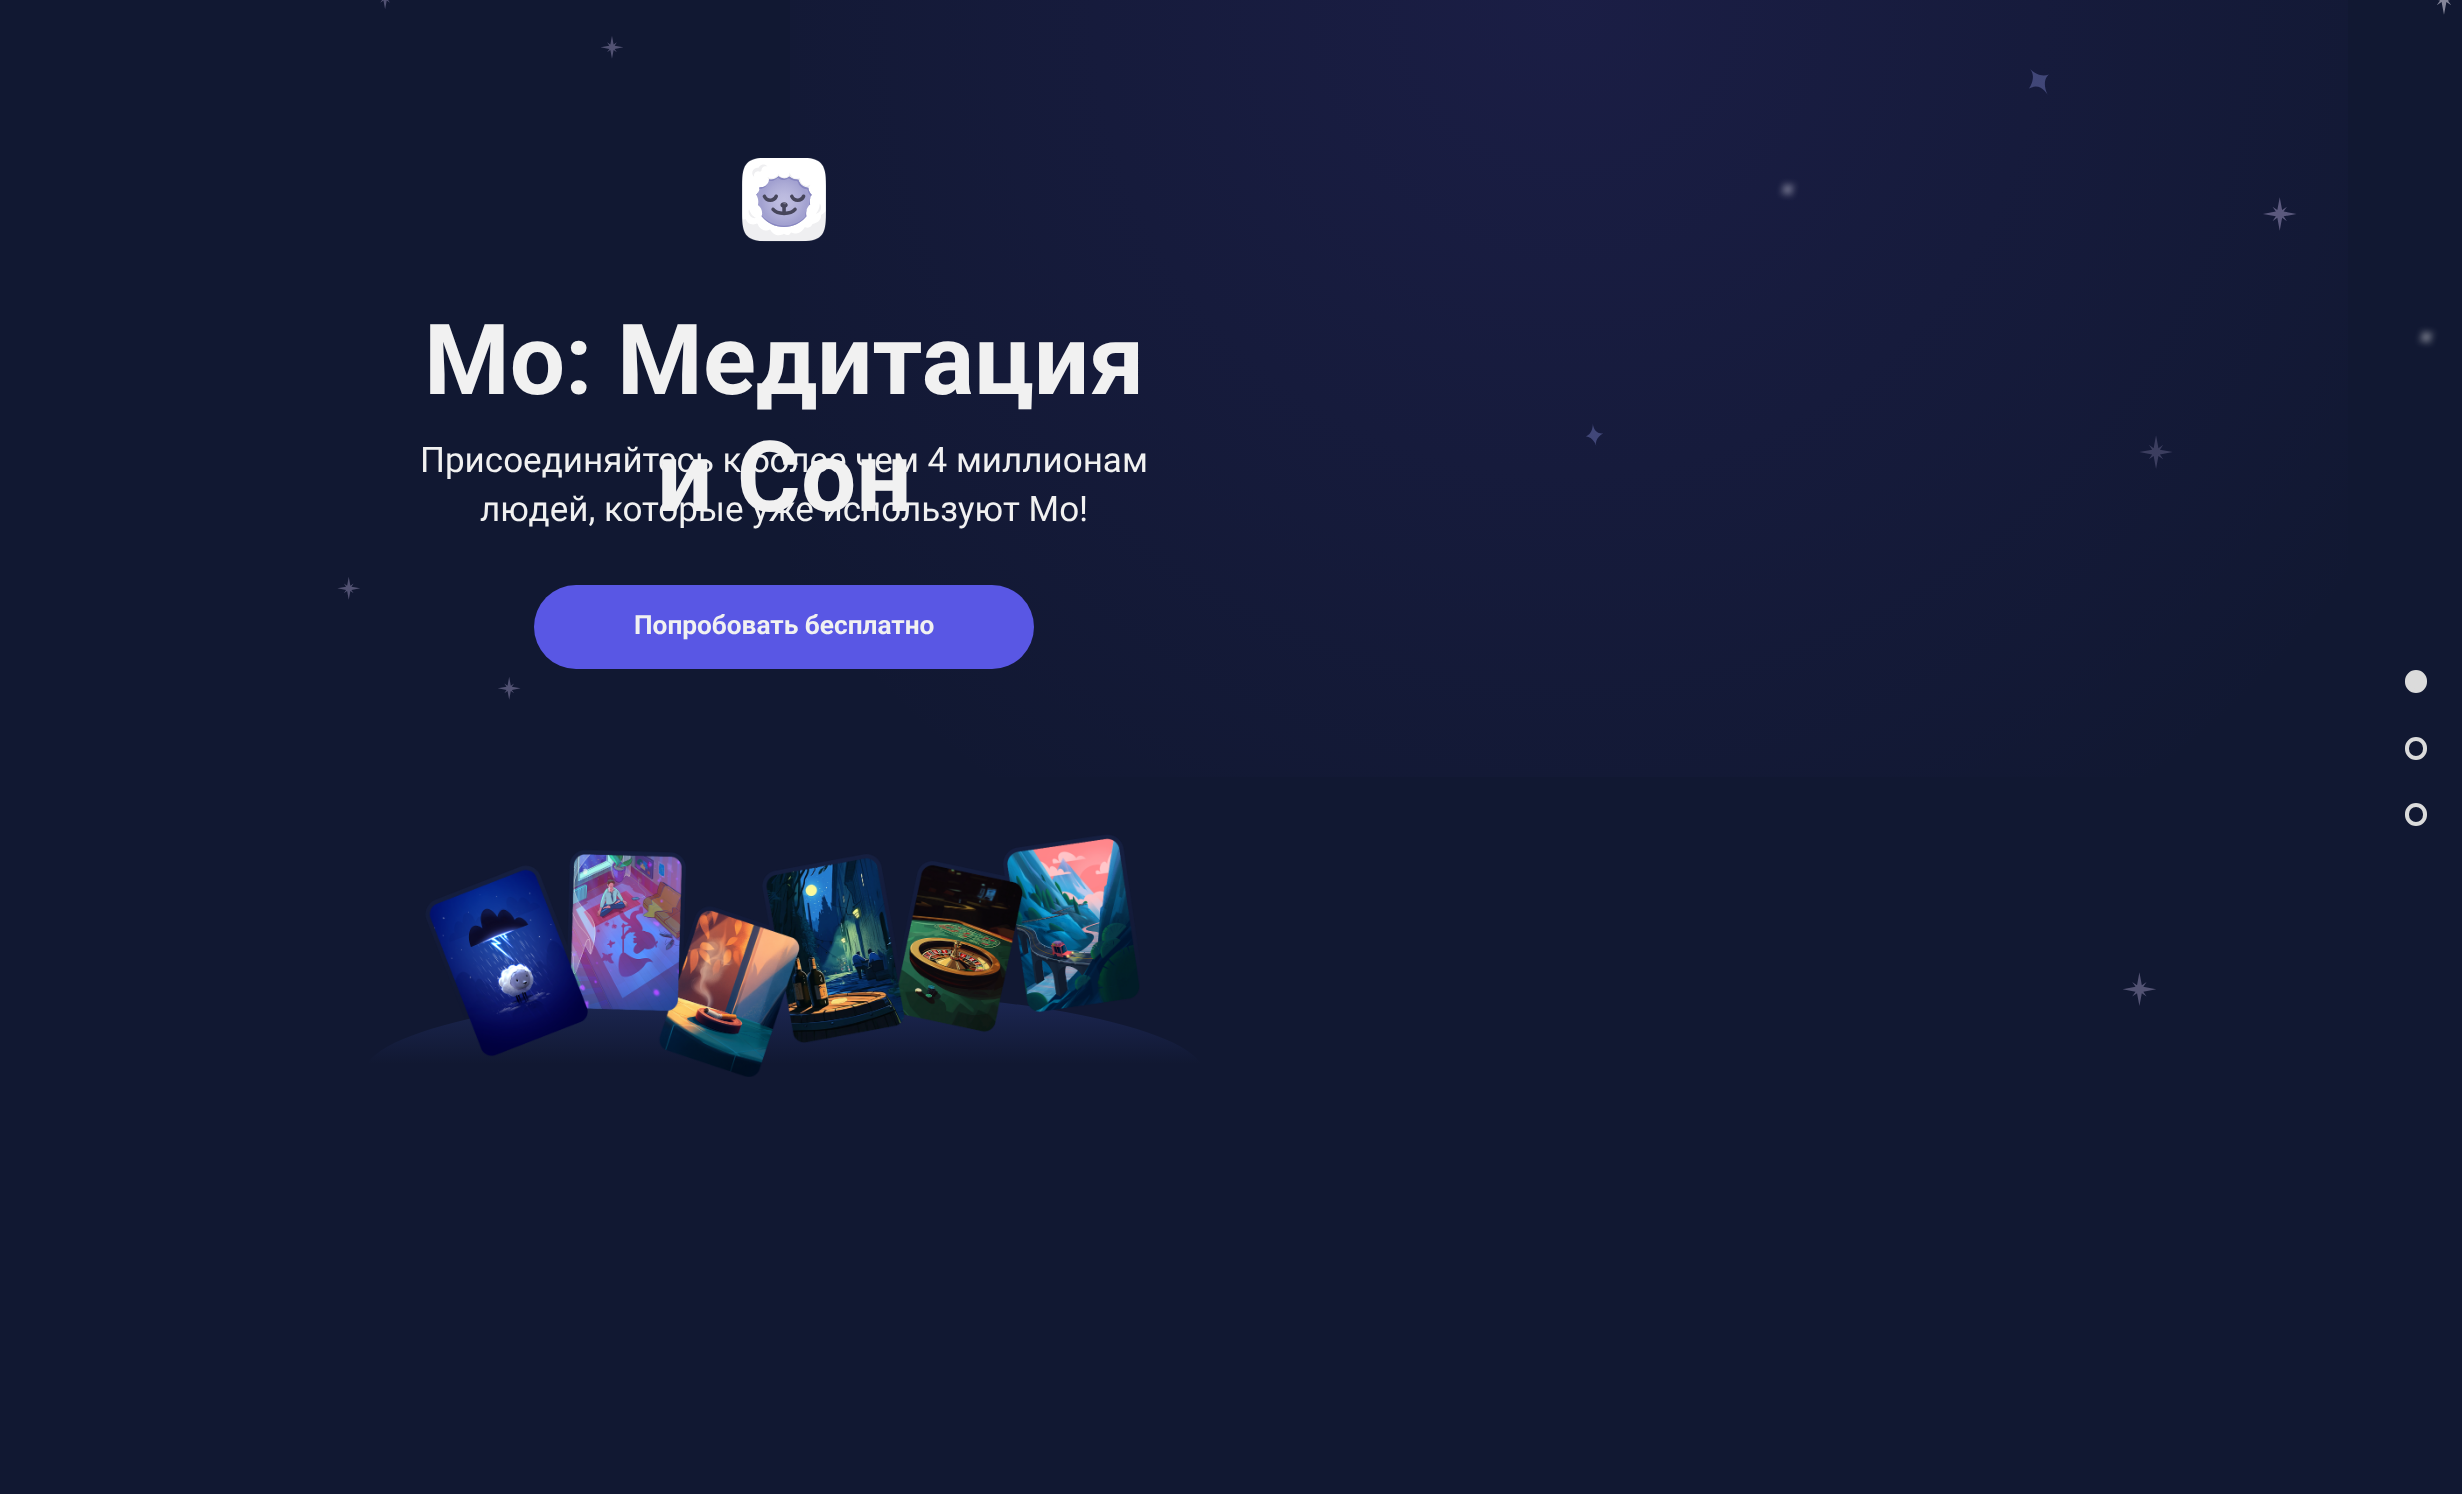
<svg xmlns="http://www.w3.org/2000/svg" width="2462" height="1494">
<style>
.a{font:bold 98px Roboto;fill:#f1f1f1}
.b{font:35px Roboto;fill:#f1f1f1}
.c{font:bold 26.25px Roboto;fill:#f1f1f1}
</style>
<defs>
<radialGradient id="g1" gradientUnits="userSpaceOnUse" cx="1568" cy="0" r="1980"><stop offset="0" stop-color="#7151f1" stop-opacity="0.1"/><stop offset="0.5" stop-color="#7151f1" stop-opacity="0"/></radialGradient>
<linearGradient id="g2" gradientUnits="userSpaceOnUse" x1="784" y1="985" x2="784" y2="1064"><stop offset="0" stop-color="#1e2a59"/><stop offset="1" stop-color="#111832"/></linearGradient>
</defs>
<rect width="100%" height="100%" fill="#111832"/>
<image href="1.png" x="337" y="0" width="2114" height="1006"/>
<path fill="url(#g1)" d="M790 0h1558v777H790z"/>
<image href="2.png" x="742" y="158" width="84" height="84"/>
<rect fill="#5957e4" x="534" y="585" width="500" height="84" rx="42"/>
<path fill="url(#g2)" d="M1204 1074c0-22-44-43-123-59c-79-16-186-24-297-25c-111 0-218 9-297 25c-79 16-123 37-123 59z"/>
<image href="3.png" x="425" y="834" width="715" height="243"/>
<rect fill="#dbdbdb" stroke="#dbdbdb" stroke-width="4" x="2407" y="672" width="18" height="19" rx="9"/>
<rect fill="none" stroke="#dbdbdb" stroke-width="4" x="2407" y="739" width="18" height="19" rx="9"/>
<rect fill="none" stroke="#dbdbdb" stroke-width="4" x="2407" y="805" width="18" height="19" rx="9"/>
<text class="a" x="424" y="394">Мо: Медитация</text>
<text class="b" x="420" y="472">Присоединяйтесь к более чем 4 миллионам</text>
<text class="b" x="480" y="521">людей, которые уже используют Mo!</text>
<text class="a" x="657" y="511">и Сон</text>
<text class="c" x="634" y="634">Попробовать бесплатно</text>
</svg>
